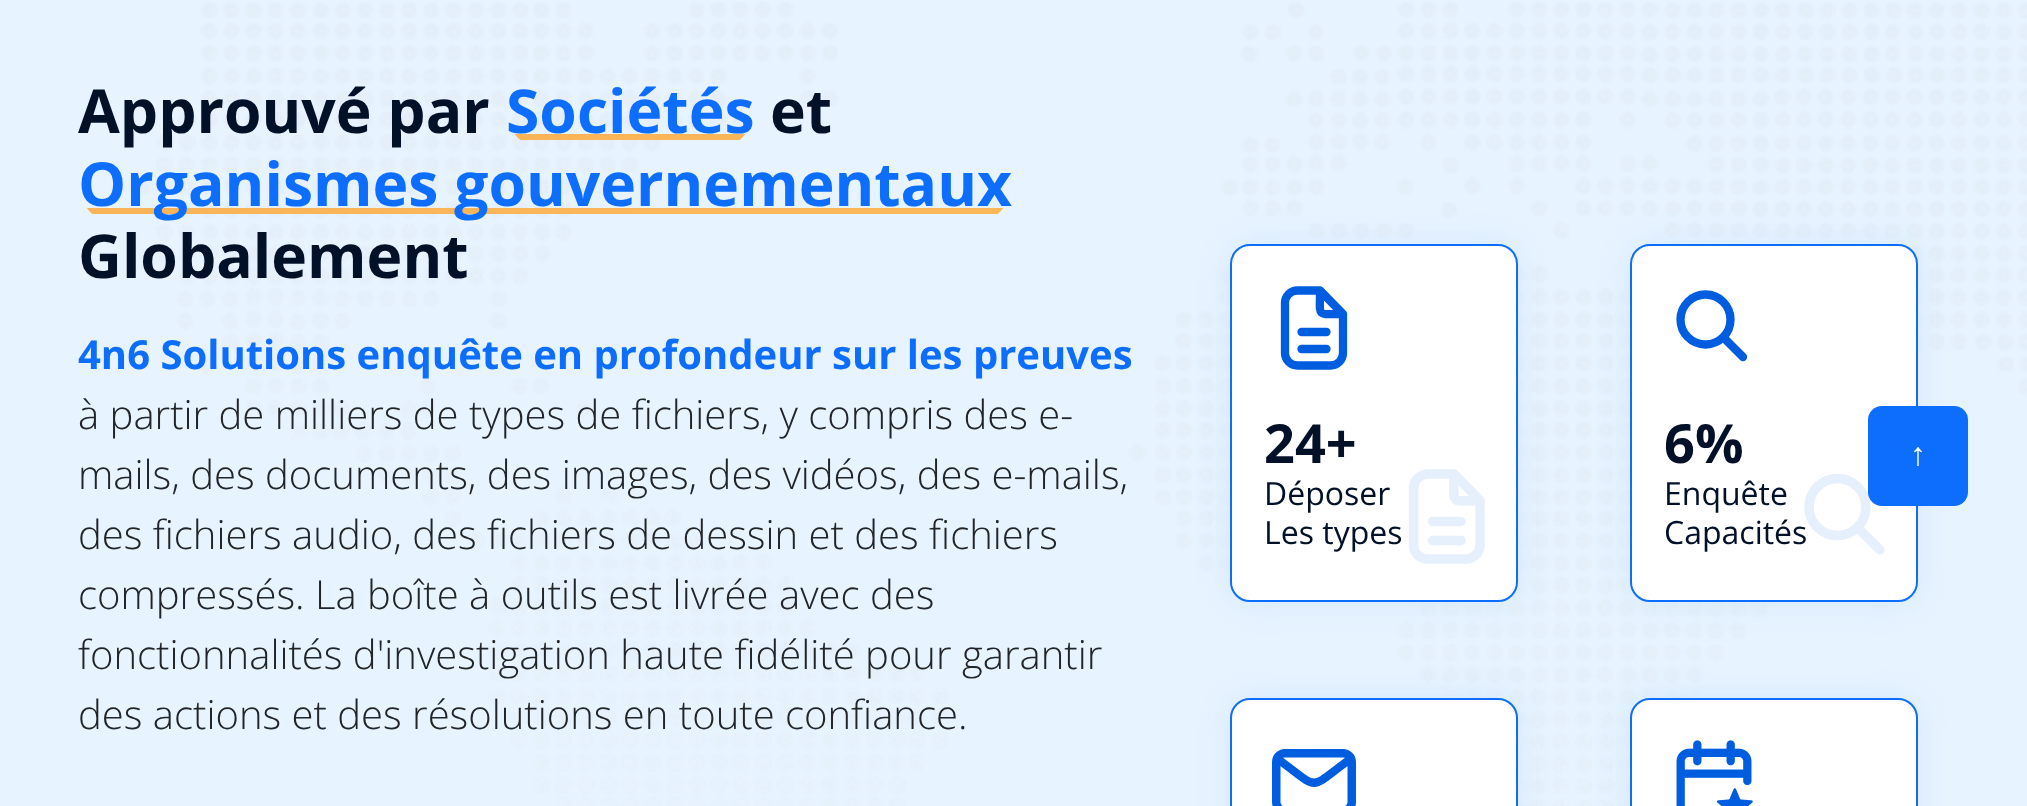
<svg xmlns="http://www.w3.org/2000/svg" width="2027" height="806">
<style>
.a{font:bold 60.6px Open Sans;fill:#021028}
.b{font:bold 60.6px Open Sans;fill:#0d6efd}
.c{font:bold 40px Open Sans;fill:#0d6efd}
.d{font:300 40px Open Sans;fill:#212529}
.e{font:bold 54px Open Sans;fill:#021028}
.f{font:32px Open Sans;fill:#021028}
.g{font:32px Liberation Sans;fill:#fff}
</style>
<defs>
<clipPath id="clip1"><rect x="506" y="68" width="248" height="82" rx="41"/></clipPath>
<linearGradient id="g1" gradientUnits="userSpaceOnUse" x1="536" y1="83" x2="724" y2="192"><stop offset="0" stop-color="#fab458"/><stop offset="1" stop-color="#fab758"/></linearGradient>
<clipPath id="clip2"><rect x="78" y="142" width="934" height="82" rx="41"/></clipPath>
<linearGradient id="g2" gradientUnits="userSpaceOnUse" x1="193" y1="9" x2="897" y2="415"><stop offset="0" stop-color="#fab458"/><stop offset="1" stop-color="#fab758"/></linearGradient>
</defs>
<rect width="100%" height="100%" fill="#e7f3ff"/>
<image href="1.png" x="136" y="2" width="1891" height="804"/>
<g clip-path="url(#clip1)">
<path fill="url(#g1)" d="M506 134h248v6H506z"/>
</g>
<g clip-path="url(#clip2)">
<path fill="url(#g2)" d="M78 208h934v6H78z"/>
</g>
<rect fill="#d4e9fd" filter="blur(16px)" x="1230" y="244" width="288" height="358" rx="20"/>
<rect fill="#fff" stroke="#0d6efd" stroke-width="2" x="1231" y="245" width="286" height="356" rx="19"/>
<path fill="none" stroke="#005de0" stroke-width="8.3" stroke-linecap="round" stroke-linejoin="round" d="M1320 290.5h-22.5c-7 0-12.5 5.5-12.5 12.5v50c0 7 5.5 12.5 12.5 12.5h33c7 0 12.5-5.5 12.5-12.5v-39m-23-23.5l23 23.5m-23-23.5c0 27.5-4 23.5 23 23.5"/>
<path fill="none" stroke="#005de0" stroke-width="8.3" stroke-linecap="round" stroke-linejoin="round" d="M1301.5 332h25m-25 17h25"/>
<path fill="none" stroke="#e6effc" stroke-width="9.5" stroke-linecap="round" stroke-linejoin="round" d="M1454 474h-26c-8 0-14.5 6.5-14.5 14v57c0 8 6.5 14 14.5 14h37.5c8 0 14.5-6 14.5-14v-44.5m-26-26.5l26 26.5m-26-26.5c0 31.5-5 26.5 26 26.5"/>
<path fill="none" stroke="#e6effc" stroke-width="9.5" stroke-linecap="round" stroke-linejoin="round" d="M1432.5 521.5h28.5m-28.5 19h28.5"/>
<rect fill="#d4e9fd" filter="blur(16px)" x="1230" y="698" width="288" height="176" rx="20"/>
<rect fill="#fff" stroke="#0d6efd" stroke-width="2" x="1231" y="699" width="286" height="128" rx="19"/>
<path fill="none" stroke="#005de0" stroke-width="8.3" stroke-linecap="round" stroke-linejoin="round" d="M1280.5 761c39 29 28 29 67 0"/>
<rect fill="none" stroke="#005de0" stroke-width="8.5" x="1276.25" y="753.25" width="75.5" height="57.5" rx="8.75"/>
<rect fill="#d4e9fd" filter="blur(16px)" x="1630" y="244" width="288" height="358" rx="20"/>
<rect fill="#fff" stroke="#0d6efd" stroke-width="2" x="1631" y="245" width="286" height="356" rx="19"/>
<circle fill="none" stroke="#005de0" stroke-width="8.3" cx="1705.5" cy="319.5" r="25"/>
<path fill="none" stroke="#005de0" stroke-width="8.3" stroke-linecap="round" stroke-linejoin="round" d="M1724.5 338.5l18.5 18.5"/>
<rect fill="#d4e9fd" filter="blur(16px)" x="1630" y="698" width="288" height="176" rx="20"/>
<rect fill="#fff" stroke="#0d6efd" stroke-width="2" x="1631" y="699" width="286" height="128" rx="19"/>
<image href="2.png" x="1676" y="740" width="77" height="66"/>
<text class="a" x="78" y="133">Approuvé par</text>
<text class="b" x="506" y="133">Sociétés</text>
<text class="a" x="770" y="133">et</text>
<text class="b" x="78" y="206">Organismes gouvernementaux</text>
<text class="a" x="78" y="278">Globalement</text>
<text class="c" x="78" y="369">4n6 Solutions enquête en profondeur sur les preuves</text>
<text class="d" x="78" y="429">à partir de milliers de types de fichiers, y compris des e-</text>
<text class="d" x="78" y="489">mails, des documents, des images, des vidéos, des e-mails,</text>
<text class="d" x="78" y="549">des fichiers audio, des fichiers de dessin et des fichiers</text>
<text class="d" x="78" y="609">compressés. La boîte à outils est livrée avec des</text>
<text class="d" x="78" y="669">fonctionnalités d'investigation haute fidélité pour garantir</text>
<text class="d" x="78" y="729">des actions et des résolutions en toute confiance.</text>
<text class="e" x="1264" y="463">24+</text>
<text class="f" x="1264" y="505">Déposer</text>
<text class="f" x="1264" y="544">Les types</text>
<text class="e" x="1664" y="463">6%</text>
<text class="f" x="1664" y="505">Enquête</text>
<text class="f" x="1664" y="544">Capacités</text>
<circle fill="none" stroke="#e6effc" stroke-width="9.5" cx="1837.5" cy="507" r="28.5"/>
<path fill="none" stroke="#e6effc" stroke-width="9.5" stroke-linecap="round" stroke-linejoin="round" d="M1858.5 528.5l21.5 21.5"/>
<rect fill="#0d6efd" x="1868" y="406" width="100" height="100" rx="14"/>
<text class="g" x="1910" y="465">↑</text>
</svg>
